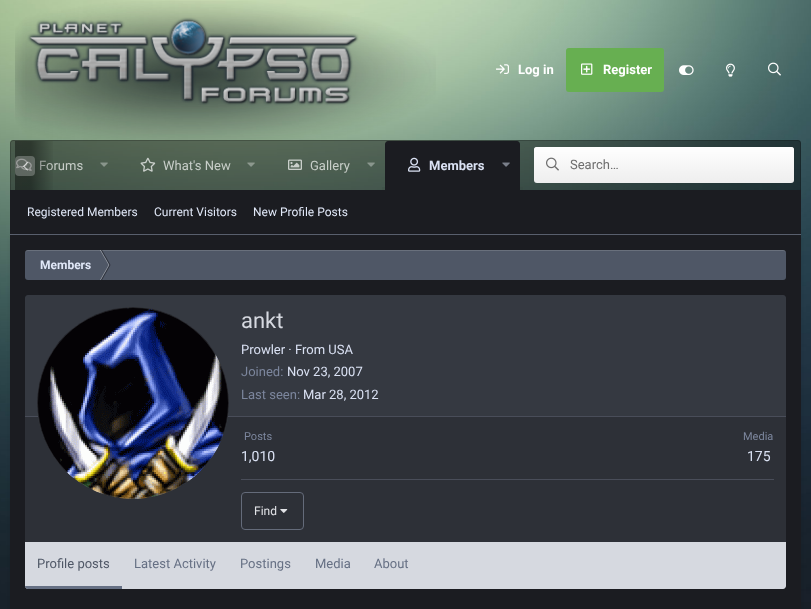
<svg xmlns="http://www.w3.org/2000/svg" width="811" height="609">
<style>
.a{font:bold 13px Roboto;fill:#fff}
.b{font:13px Roboto;fill:#c8cec9}
.c{font:bold 13px Roboto;fill:#dae1f3}
.d{font:13px Roboto;fill:#6e6e6e}
.e{font:12px Roboto;fill:#e1e8f8}
.f{font:bold 12px Roboto;fill:#e1e8f8}
.g{font:22px Roboto;fill:#d6d9e0}
.h{font:13px Roboto;fill:#dae1f3}
.i{font:13px Roboto;fill:#7c869d}
.j{font:11px Roboto;fill:#7c869d}
.k{font:14px Roboto;fill:#dae1f3}
.l{font:12px Roboto;fill:#e2e3e7}
.m{font:13px Roboto;fill:#4f5766}
.n{font:13px Roboto;fill:#667084}
</style>
<defs>
<linearGradient id="g1" gradientUnits="userSpaceOnUse" x1="664" y1="147" x2="664" y2="183"><stop offset="0" stop-color="#fff"/><stop offset="1" stop-color="#fff" stop-opacity="0"/></linearGradient>
<linearGradient id="g2" gradientUnits="userSpaceOnUse" x1="55" y1="166" x2="15" y2="166"><stop offset="0" stop-color="#000" stop-opacity="0"/><stop offset="0.6" stop-color="#000" stop-opacity="0.4"/></linearGradient>
</defs>
<rect width="100%" height="100%" fill="#fff"/>
<image href="1.png" x="0" y="0" width="811" height="609"/>
<image href="2.png" x="15" y="1" width="421" height="139"/>
<image href="3.png" x="496" y="64" width="13" height="10"/>
<rect fill="#67af51" x="566" y="48" width="98" height="44" rx="3"/>
<image href="4.png" x="581" y="63" width="12" height="12"/>
<image href="5.png" x="679" y="65" width="15" height="10"/>
<image href="6.png" x="726" y="63" width="9" height="14"/>
<image href="7.png" x="768" y="62" width="13" height="14"/>
<path fill="#00000066" d="M13 140h785c1.5 0 3 1.5 3 3v47h-791v-47c0-1.5 1.5-3 3-3z"/>
<path fill="#00000033" fill-rule="evenodd" d="M13 140h785c2 0 3 1 3 3v47h-791v-47c0-2 1-3 3-3zm0 1h785c1 0 2 1 2 2v47h-789v-47c0-1 1-2 2-2z"/>
<image href="9.png" x="16" y="158" width="16" height="13"/>
<image href="10.png" x="100" y="162" width="8" height="5"/>
<image href="11.png" x="140" y="157" width="16" height="15"/>
<image href="12.png" x="247" y="162" width="8" height="5"/>
<image href="13.png" x="288" y="159" width="14" height="11"/>
<image href="14.png" x="367" y="162" width="8" height="5"/>
<path fill="#1b1c21" d="M388 141h129c1.5 0 3 1.5 3 3v46h-135v-46c0-1.5 1.5-3 3-3z"/>
<image href="15.png" x="408" y="157" width="13" height="15"/>
<image href="16.png" x="502" y="162" width="8" height="5"/>
<path fill="#41534a" d="M382 187h3v3H382z"/>
<path fill="#384a44" d="M520 187h3v3H520z"/>
<rect fill="#eee" x="534" y="147" width="260" height="36" rx="3"/>
<rect fill="url(#g1)" x="534" y="147" width="260" height="36" rx="3"/>
<image href="17.png" x="546" y="157" width="13" height="14"/>
<path fill="#1b1c21" d="M10 190h791v44H10z"/>
<path fill="#5b616f" d="M10 234h791v1H10z"/>
<rect fill="#00000014" filter="blur(1.5px)" x="10" y="236" width="791" height="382" rx="4"/>
<path fill="#1b1c21" d="M10 235h791v374H10z"/>
<rect fill="#4f5766" x="25" y="250" width="761" height="30" rx="3"/>
<path fill="#ffffff26" d="M28 251h755c2 0 3 1 3 3c0-2-1-4-3-4h-755c-2 0-3 2-3 4c0-2 1-3 3-3z"/>
<path fill="#ffffff61" d="M100 250h1l8.5 15h-1z"/>
<path fill="#22262dcc" d="M101 250h1l8.5 15h-1z"/>
<path fill="#9297a0" d="M108.5 265h1l-8.5 15h-1z"/>
<path fill="#22262dcc" d="M109.5 265h1l-8.5 15h-1z"/>
<rect fill="#2d3037" x="25" y="295" width="761" height="294" rx="4"/>
<path fill="#353941" d="M28 295h755c1.5 0 3 1.5 3 3v119h-761v-119c0-1.5 1.5-3 3-3z"/>
<path fill="#494d59" d="M25 416h761v1H25z"/>
<circle fill="#2d3037" cx="133" cy="403" r="96"/>
<image href="18.png" x="37" y="307" width="192" height="192"/>
<circle fill="none" stroke="#dae1f326" cx="133" cy="403" r="95.5"/>
<path fill="#494d59" d="M241 479h533v1H241z"/>
<rect fill="none" stroke="#646b7a" x="241.5" y="492.5" width="62" height="37" rx="3.5"/>
<image href="19.png" x="280" y="509" width="8" height="4"/>
<path fill="#d6d9e0" d="M25 542h761v44c0 1.5-1.5 3-3 3h-755c-1.5 0-3-1.5-3-3z"/>
<path fill="#667084" d="M25 586h97v3h-94c-1.5 0-3-1.5-3-3z"/>
<text class="a" x="518" y="74">Log in</text>
<text class="a" x="603" y="74">Register</text>
<text class="b" x="39" y="170">Forums</text>
<path fill="url(#g2)" d="M15 141h38v49H15z"/>
<rect fill="#ffffff40" x="15" y="156" width="20" height="20" rx="4"/>
<image href="8.png" x="23" y="162" width="5" height="9"/>
<text class="b" x="163" y="170">What's New</text>
<text class="b" x="310" y="170">Gallery</text>
<text class="c" x="429" y="170">Members</text>
<text class="d" x="570" y="169">Search…</text>
<text class="e" x="27" y="216">Registered Members</text>
<text class="e" x="154" y="216">Current Visitors</text>
<text class="e" x="253" y="216">New Profile Posts</text>
<text class="f" x="40" y="269">Members</text>
<text class="g" x="241" y="328">ankt</text>
<text class="h" x="241" y="354">Prowler · From USA</text>
<text class="i" x="241" y="376">Joined:</text>
<text class="h" x="287" y="376">Nov 23, 2007</text>
<text class="i" x="241" y="399">Last seen:</text>
<text class="h" x="303" y="399">Mar 28, 2012</text>
<text class="j" x="244" y="440">Posts</text>
<text class="k" x="241" y="461">1,010</text>
<text class="j" x="743" y="440">Media</text>
<text class="k" x="747" y="461">175</text>
<text class="l" x="254" y="515">Find</text>
<text class="m" x="37" y="568">Profile posts</text>
<text class="n" x="134" y="568">Latest Activity</text>
<text class="n" x="240" y="568">Postings</text>
<text class="n" x="315" y="568">Media</text>
<text class="n" x="374" y="568">About</text>
</svg>
